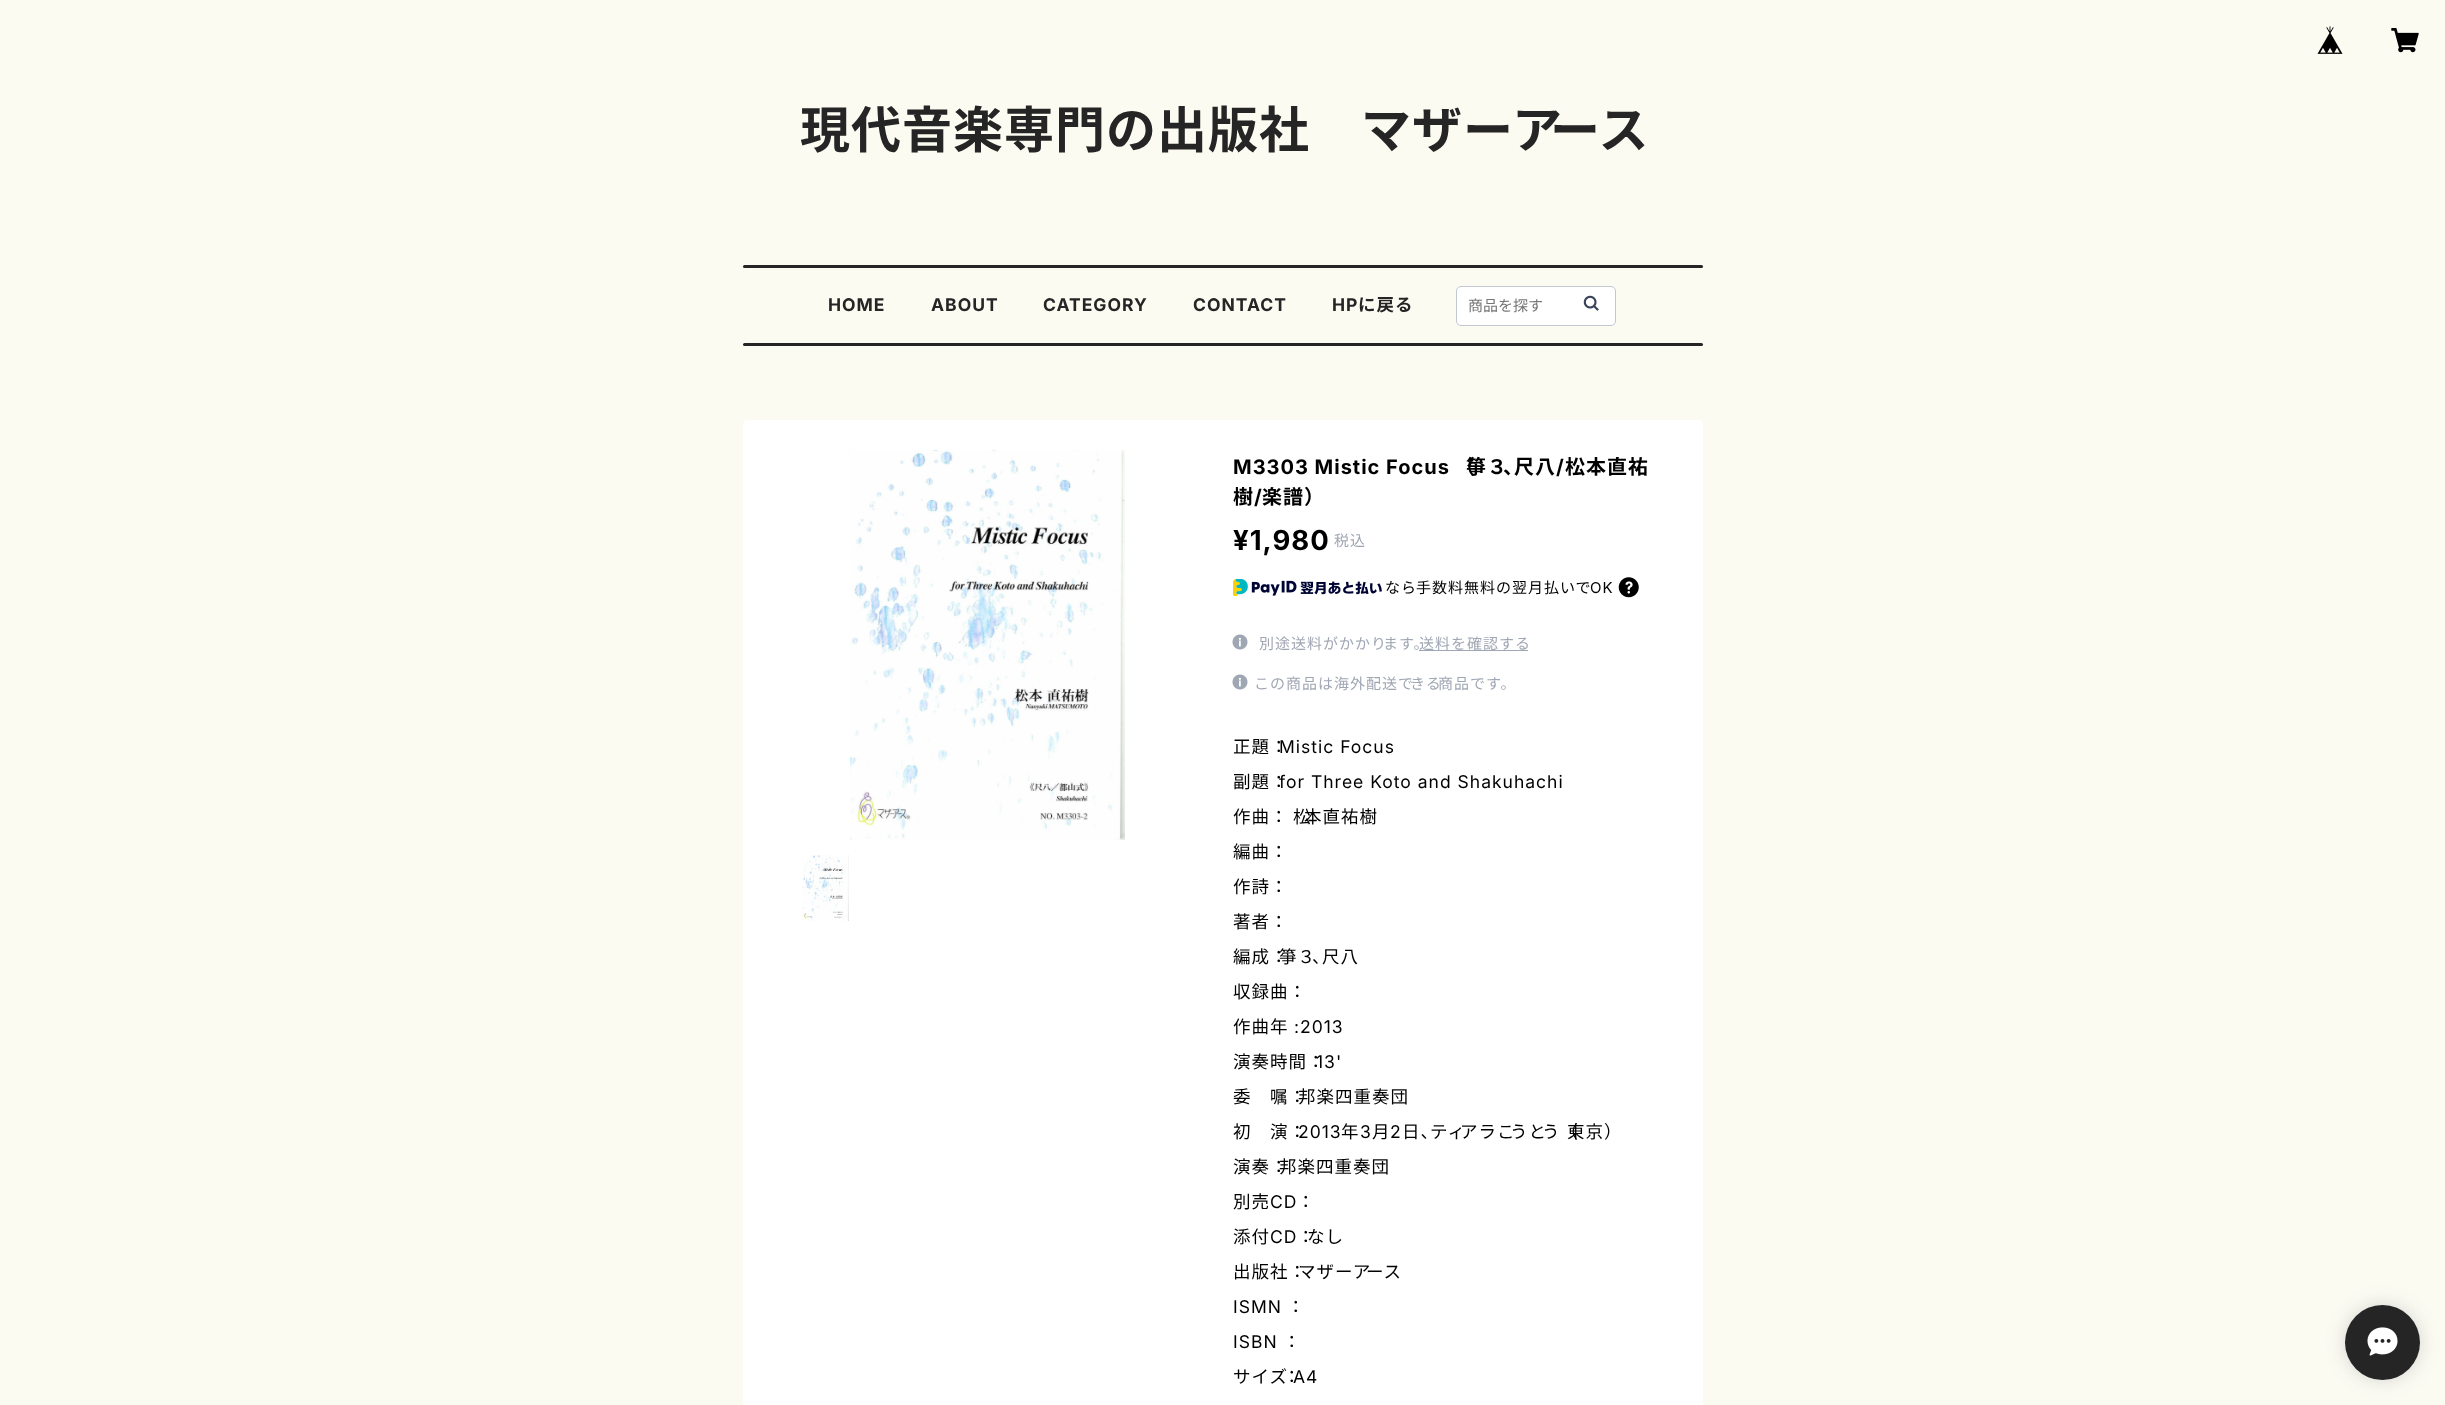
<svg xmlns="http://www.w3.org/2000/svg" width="2445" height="1405">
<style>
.a{font:bold 50px Noto Sans JP;letter-spacing:1px;fill:#252525}
.b{font:bold 17.5px Inter;letter-spacing:1px;fill:#252525}
.c{font:bold 17.5px Noto Sans JP;letter-spacing:1px;fill:#252525}
.d{font:15px Noto Sans JP;fill:#757575}
.e{font:bold 20px Inter;letter-spacing:1px;fill:#000}
.f{font:bold 20px Noto Sans JP;letter-spacing:1px;fill:#000}
.g{font:bold 27.5px Inter;letter-spacing:1px;fill:#000}
.h{font:15px Noto Sans JP;letter-spacing:1px;fill:#a0a7b4}
.i{font:15px Noto Sans JP;letter-spacing:1px;fill:#000}
.j{font:15px Inter;letter-spacing:1px;fill:#000}
.k{font:17.5px Noto Sans JP;letter-spacing:1px;fill:#000}
.l{font:17.5px Inter;letter-spacing:1px;fill:#000}
</style>
<rect width="100%" height="100%" fill="#fcfbf2"/>
<image href="1.png" x="2317" y="26" width="26" height="28"/>
<image href="2.png" x="2391" y="28" width="28" height="25"/>
<rect fill="#252525" x="743" y="265" width="960" height="3" rx="1.5"/>
<rect fill="#fff" stroke="#c2c8d2" x="1456.5" y="286.5" width="159" height="39" rx="4.5"/>
<image href="3.png" x="1583" y="295" width="16" height="16"/>
<rect fill="#252525" x="743" y="343" width="960" height="3" rx="1.5"/>
<rect fill="#fff" x="743" y="420" width="960" height="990" rx="5"/>
<image href="4.png" x="850" y="450" width="275" height="390"/>
<image href="5.png" x="802" y="855" width="47" height="66"/>
<image href="6.png" x="1233" y="579" width="149" height="17"/>
<image href="7.png" x="1618" y="577" width="21" height="21"/>
<image href="8.png" x="1232" y="634" width="16" height="16"/>
<path fill="#a0a7b4" d="M1419 650h109v1H1419z"/>
<image href="8.png" x="1232" y="674" width="16" height="16"/>
<rect fill="#33425833" filter="blur(9.5px)" x="2345" y="1305" width="75" height="75" rx="37.5"/>
<circle fill="#252525" cx="2382.5" cy="1342.5" r="37.5"/>
<image href="9.png" x="2367" y="1327" width="31" height="29"/>
<text class="a" x="800" y="148">現代音楽専門の出版社　マザーア</text>
<text class="a" x="1550" y="148">ース</text>
<text class="b" x="828" y="311">HOME</text>
<text class="b" x="931" y="311">ABOUT</text>
<text class="b" x="1043" y="311">CATEGORY</text>
<text class="b" x="1193" y="311">CONTACT</text>
<text class="b" x="1332" y="311">HP</text>
<text class="c" x="1358" y="311">に戻る</text>
<text class="d" x="1468" y="311">商品を探す</text>
<text class="e" x="1233" y="474">M3303 Mistic Focus</text>
<text class="f" x="1455" y="474">（</text>
<text class="f" x="1466" y="474">箏３</text>
<text class="f" x="1503" y="474">、</text>
<text class="f" x="1514" y="474">尺八</text>
<text class="e" x="1556" y="474">/</text>
<text class="f" x="1565" y="474">松本直祐</text>
<text class="f" x="1233" y="504">樹</text>
<text class="e" x="1254" y="504">/</text>
<text class="f" x="1262" y="504">楽譜）</text>
<text class="g" x="1233" y="550">¥1,980</text>
<text class="h" x="1334" y="546">税込</text>
<text class="i" x="1385" y="593">なら</text>
<text class="i" x="1416" y="593">手数料無料の</text>
<text class="i" x="1512" y="593">翌月払いで</text>
<text class="j" x="1590" y="593">OK</text>
<text class="h" x="1259" y="649">別途送料がかかり</text>
<text class="h" x="1383" y="649">ます。</text>
<text class="h" x="1419" y="649">送料を確認する</text>
<text class="h" x="1254" y="689">この商品は海外配送で</text>
<text class="h" x="1410" y="689">きる</text>
<text class="h" x="1438" y="689">商品です。</text>
<text class="k" x="1233" y="753">正題：</text>
<text class="l" x="1279" y="753">Mistic Focus</text>
<text class="k" x="1233" y="788">副題：</text>
<text class="l" x="1279" y="788">for Three Koto and Shakuhachi</text>
<text class="k" x="1233" y="823" word-spacing="1">作曲：</text>
<text class="k" x="1293" y="823" word-spacing="1">松</text>
<text class="k" x="1304" y="823" word-spacing="1">本直祐樹</text>
<text class="k" x="1233" y="858">編曲：</text>
<text class="k" x="1233" y="893">作詩：</text>
<text class="k" x="1233" y="928">著者：</text>
<text class="k" x="1233" y="963">編成：</text>
<text class="k" x="1279" y="963">箏３</text>
<text class="k" x="1312" y="963">、</text>
<text class="k" x="1322" y="963">尺八</text>
<text class="k" x="1233" y="998">収録曲：</text>
<text class="k" x="1233" y="1033">作曲年</text>
<text class="l" x="1294" y="1033">:2013</text>
<text class="k" x="1233" y="1068">演奏時間：</text>
<text class="l" x="1316" y="1068">13'</text>
<text class="k" x="1233" y="1103">委　嘱：</text>
<text class="k" x="1298" y="1103">邦楽四重奏団</text>
<text class="k" x="1233" y="1138">初　演：</text>
<text class="l" x="1298" y="1138">2013</text>
<text class="k" x="1341" y="1138">年</text>
<text class="l" x="1360" y="1138">3</text>
<text class="k" x="1372" y="1138">月</text>
<text class="l" x="1390" y="1138">2</text>
<text class="k" x="1402" y="1138">日、</text>
<text class="k" x="1430" y="1138">ティ</text>
<text class="k" x="1460" y="1138">アラこ</text>
<text class="k" x="1510" y="1138">うと</text>
<text class="k" x="1542" y="1138">う（</text>
<text class="k" x="1567" y="1138">東京）</text>
<text class="k" x="1233" y="1173">演奏：</text>
<text class="k" x="1279" y="1173">邦楽四重奏団</text>
<text class="k" x="1233" y="1208">別売</text>
<text class="l" x="1270" y="1208">CD</text>
<text class="k" x="1297" y="1208">：</text>
<text class="k" x="1233" y="1243">添付</text>
<text class="l" x="1270" y="1243">CD</text>
<text class="k" x="1297" y="1243">：</text>
<text class="k" x="1307" y="1243">なし</text>
<text class="k" x="1233" y="1278">出版社：</text>
<text class="k" x="1298" y="1278">マザーア</text>
<text class="k" x="1366" y="1278">ース</text>
<text class="l" x="1233" y="1313">ISMN</text>
<text class="k" x="1287" y="1313">：</text>
<text class="l" x="1233" y="1348">ISBN</text>
<text class="k" x="1283" y="1348">：</text>
<text class="k" x="1233" y="1383">サイズ</text>
<text class="k" x="1283" y="1383">：</text>
<text class="l" x="1293" y="1383">A4</text>
</svg>
